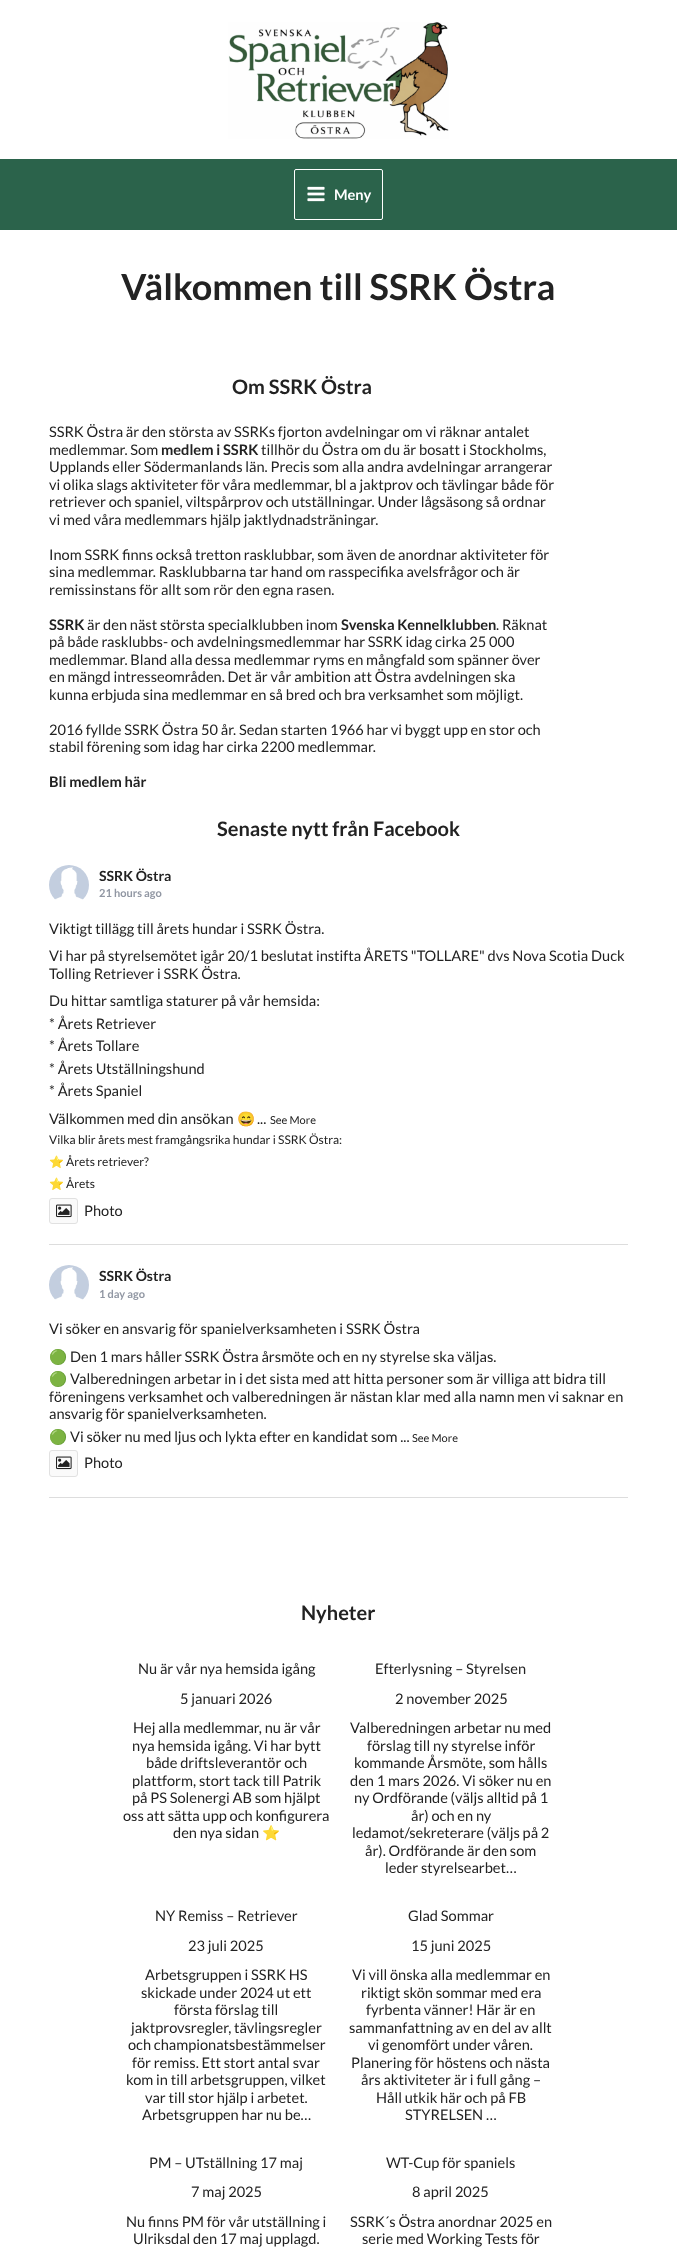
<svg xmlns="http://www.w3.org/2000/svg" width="677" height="2251">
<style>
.a{font:bold 14.6px Lato;fill:#fff}
.b{font:bold 36px Lato;fill:#222}
.c{font:bold 20px Lato;fill:#222}
.d{font:14.6px Lato;fill:#222}
.e{font:bold 14.6px Lato;fill:#222}
.f{font:bold 14px Lato;fill:#222}
.g{font:bold 11px Lato;fill:#9197a3}
.h{font:14.6px Noto Color Emoji;fill:#222}
.i{font:12px Lato;fill:#222}
.j{font:12px Noto Color Emoji;fill:#222}
.k{font:11px Lato;fill:#222}
</style>
<rect width="100%" height="100%" fill="#fff"/>
<image href="1.png" x="228" y="22" width="221" height="117"/>
<path fill="#2b634b" d="M0 159h677v71H0z"/>
<rect fill="none" stroke="#fff" x="294.5" y="169.5" width="88" height="50" rx="1.5"/>
<image href="2.png" x="307" y="186" width="18" height="16"/>
<path fill="#ddd" d="M49 1244h579v1H49z"/>
<image href="3.png" x="49" y="865" width="40" height="35"/>
<rect fill="#fafafa" stroke="#e1e1e1" x="49.5" y="1198.5" width="28" height="25" rx="2.5"/>
<image href="4.png" x="56" y="1204" width="16" height="14"/>
<path fill="#ddd" d="M49 1497h579v1H49z"/>
<image href="5.png" x="49" y="1265" width="40" height="35"/>
<rect fill="#fafafa" stroke="#e1e1e1" x="49.5" y="1450.5" width="28" height="26" rx="2.5"/>
<image href="4.png" x="56" y="1456" width="16" height="14"/>
<text class="a" x="334" y="200">Meny</text>
<text class="b" x="121" y="300">Välkommen till SSRK Östra</text>
<text class="c" x="232" y="394">Om SSRK Östra</text>
<text class="d" x="49" y="437">SSRK Östra är den största av SSRKs fjorton avdelningar om vi räknar antalet</text>
<text class="d" x="49" y="455">medlemmar. Som</text>
<text class="e" x="161" y="455">medlem i SSRK</text>
<text class="d" x="261" y="455">tillhör du Östra om du är bosatt i Stockholms,</text>
<text class="d" x="49" y="472">Upplands eller Södermanlands län. Precis som alla andra avdelningar arrangerar</text>
<text class="d" x="49" y="490">vi olika slags aktiviteter för våra medlemmar, bl a jaktprov och tävlingar både för</text>
<text class="d" x="49" y="507">retriever och spaniel, viltspårprov och utställningar. Under lågsäsong så ordnar</text>
<text class="d" x="49" y="525">vi med våra medlemmars hjälp jaktlydnadsträningar.</text>
<text class="d" x="49" y="560">Inom SSRK finns också tretton rasklubbar, som även de anordnar aktiviteter för</text>
<text class="d" x="49" y="577">sina medlemmar. Rasklubbarna tar hand om rasspecifika avelsfrågor och är</text>
<text class="d" x="49" y="595">remissinstans för allt som rör den egna rasen.</text>
<text class="e" x="49" y="630">SSRK</text>
<text class="d" x="87" y="630">är den näst största specialklubben inom</text>
<text class="e" x="341" y="630">Svenska Kennelklubben</text>
<text class="d" x="496" y="630">. Räknat</text>
<text class="d" x="49" y="647">på både rasklubbs- och avdelningsmedlemmar har SSRK idag cirka 25 000</text>
<text class="d" x="49" y="665">medlemmar. Bland alla dessa medlemmar ryms en mångfald som spänner över</text>
<text class="d" x="49" y="682">en mängd intresseområden. Det är vår ambition att Östra avdelningen ska</text>
<text class="d" x="49" y="700">kunna erbjuda sina medlemmar en så bred och bra verksamhet som möjligt.</text>
<text class="d" x="49" y="735">2016 fyllde SSRK Östra 50 år. Sedan starten 1966 har vi byggt upp en stor och</text>
<text class="d" x="49" y="752">stabil förening som idag har cirka 2200 medlemmar.</text>
<text class="e" x="49" y="787">Bli medlem här</text>
<text class="c" x="217" y="836">Senaste nytt från Facebook</text>
<text class="f" x="99" y="881">SSRK Östra</text>
<text class="g" x="99" y="897">21 hours ago</text>
<text class="d" x="49" y="934">Viktigt tillägg till årets hundar i SSRK Östra.</text>
<text class="d" x="49" y="961">Vi har på styrelsemötet igår 20/1 beslutat instifta ÅRETS "TOLLARE" dvs Nova Scotia Duck</text>
<text class="d" x="49" y="979">Tolling Retriever i SSRK Östra.</text>
<text class="d" x="49" y="1006">Du hittar samtliga staturer på vår hemsida:</text>
<text class="d" x="49" y="1029">* Årets Retriever</text>
<text class="d" x="49" y="1051">* Årets Tollare</text>
<text class="d" x="49" y="1074">* Årets Utställningshund</text>
<text class="d" x="49" y="1096">* Årets Spaniel</text>
<text class="d" x="49" y="1124">Välkommen med din ansökan</text>
<text class="h" x="237" y="1124">😄</text>
<text class="i" x="49" y="1144">Vilka blir årets mest framgångsrika hundar i SSRK Östra:</text>
<text class="j" x="49" y="1166">⭐️</text>
<text class="i" x="66" y="1166">Årets retriever?</text>
<text class="j" x="49" y="1188">⭐️</text>
<text class="i" x="66" y="1188">Årets</text>
<text class="d" x="257" y="1124">...</text>
<text class="k" x="270" y="1124">See More</text>
<text class="d" x="84" y="1216">Photo</text>
<text class="f" x="99" y="1281">SSRK Östra</text>
<text class="g" x="99" y="1298">1 day ago</text>
<text class="d" x="49" y="1334">Vi söker en ansvarig för spanielverksamheten i SSRK Östra</text>
<text class="h" x="49" y="1362">🟢</text>
<text class="d" x="70" y="1362">Den 1 mars håller SSRK Östra årsmöte och en ny styrelse ska väljas.</text>
<text class="h" x="49" y="1384">🟢</text>
<text class="d" x="70" y="1384">Valberedningen arbetar in i det sista med att hitta personer som är villiga att bidra till</text>
<text class="d" x="49" y="1402">föreningens verksamhet och valberedningen är nästan klar med alla namn men vi saknar en</text>
<text class="d" x="49" y="1419">ansvarig för spanielverksamheten.</text>
<text class="h" x="49" y="1442">🟢</text>
<text class="d" x="70" y="1442">Vi söker nu med ljus och lykta efter en kandidat som ...</text>
<text class="k" x="412" y="1442">See More</text>
<text class="d" x="84" y="1468">Photo</text>
<text class="c" x="301" y="1620">Nyheter</text>
<text class="d" x="138" y="1674">Nu är vår nya hemsida igång</text>
<text class="d" x="180" y="1704">5 januari 2026</text>
<text class="d" x="133" y="1733">Hej alla medlemmar, nu är vår</text>
<text class="d" x="132" y="1751">nya hemsida igång. Vi har bytt</text>
<text class="d" x="146" y="1768">både driftsleverantör och</text>
<text class="d" x="132" y="1786">plattform, stort tack till Patrik</text>
<text class="d" x="132" y="1803">på PS Solenergi AB som hjälpt</text>
<text class="d" x="123" y="1821">oss att sätta upp och konfigurera</text>
<text class="d" x="173" y="1838">den nya sidan</text>
<text class="h" x="262" y="1838">⭐️</text>
<text class="d" x="375" y="1674">Efterlysning – Styrelsen</text>
<text class="d" x="395" y="1704">2 november 2025</text>
<text class="d" x="350" y="1733">Valberedningen arbetar nu med</text>
<text class="d" x="367" y="1751">förslag till ny styrelse inför</text>
<text class="d" x="354" y="1768">kommande Årsmöte, som hålls</text>
<text class="d" x="350" y="1786">den 1 mars 2026. Vi söker nu en</text>
<text class="d" x="354" y="1803">ny Ordförande (väljs alltid på 1</text>
<text class="d" x="411" y="1821">år) och en ny</text>
<text class="d" x="352" y="1838">ledamot/sekreterare (väljs på 2</text>
<text class="d" x="365" y="1856">år). Ordförande är den som</text>
<text class="d" x="385" y="1873">leder styrelsearbet…</text>
<text class="d" x="155" y="1921">NY Remiss – Retriever</text>
<text class="d" x="188" y="1951">23 juli 2025</text>
<text class="d" x="145" y="1980">Arbetsgruppen i SSRK HS</text>
<text class="d" x="141" y="1998">skickade under 2024 ut ett</text>
<text class="d" x="174" y="2015">första förslag till</text>
<text class="d" x="131" y="2033">jaktprovsregler, tävlingsregler</text>
<text class="d" x="128" y="2050">och championatsbestämmelser</text>
<text class="d" x="132" y="2068">för remiss. Ett stort antal svar</text>
<text class="d" x="126" y="2085">kom in till arbetsgruppen, vilket</text>
<text class="d" x="145" y="2103">var till stor hjälp i arbetet.</text>
<text class="d" x="142" y="2120">Arbetsgruppen har nu be…</text>
<text class="d" x="408" y="1921">Glad Sommar</text>
<text class="d" x="411" y="1951">15 juni 2025</text>
<text class="d" x="352" y="1980">Vi vill önska alla medlemmar en</text>
<text class="d" x="361" y="1998">riktigt skön sommar med era</text>
<text class="d" x="366" y="2015">fyrbenta vänner! Här är en</text>
<text class="d" x="349" y="2033">sammanfattning av en del av allt</text>
<text class="d" x="368" y="2050">vi genomfört under våren.</text>
<text class="d" x="351" y="2068">Planering för höstens och nästa</text>
<text class="d" x="361" y="2085">års aktiviteter är i full gång –</text>
<text class="d" x="376" y="2103">Håll utkik här och på FB</text>
<text class="d" x="405" y="2120">STYRELSEN …</text>
<text class="d" x="149" y="2168">PM – UTställning 17 maj</text>
<text class="d" x="191" y="2197">7 maj 2025</text>
<text class="d" x="126" y="2227">Nu finns PM för vår utställning i</text>
<text class="d" x="133" y="2244">Ulriksdal den 17 maj upplagd.</text>
<text class="d" x="386" y="2168">WT-Cup för spaniels</text>
<text class="d" x="412" y="2197">8 april 2025</text>
<text class="d" x="350" y="2227">SSRK´s Östra anordnar 2025 en</text>
<text class="d" x="362" y="2244">serie med Working Tests för</text>
</svg>
